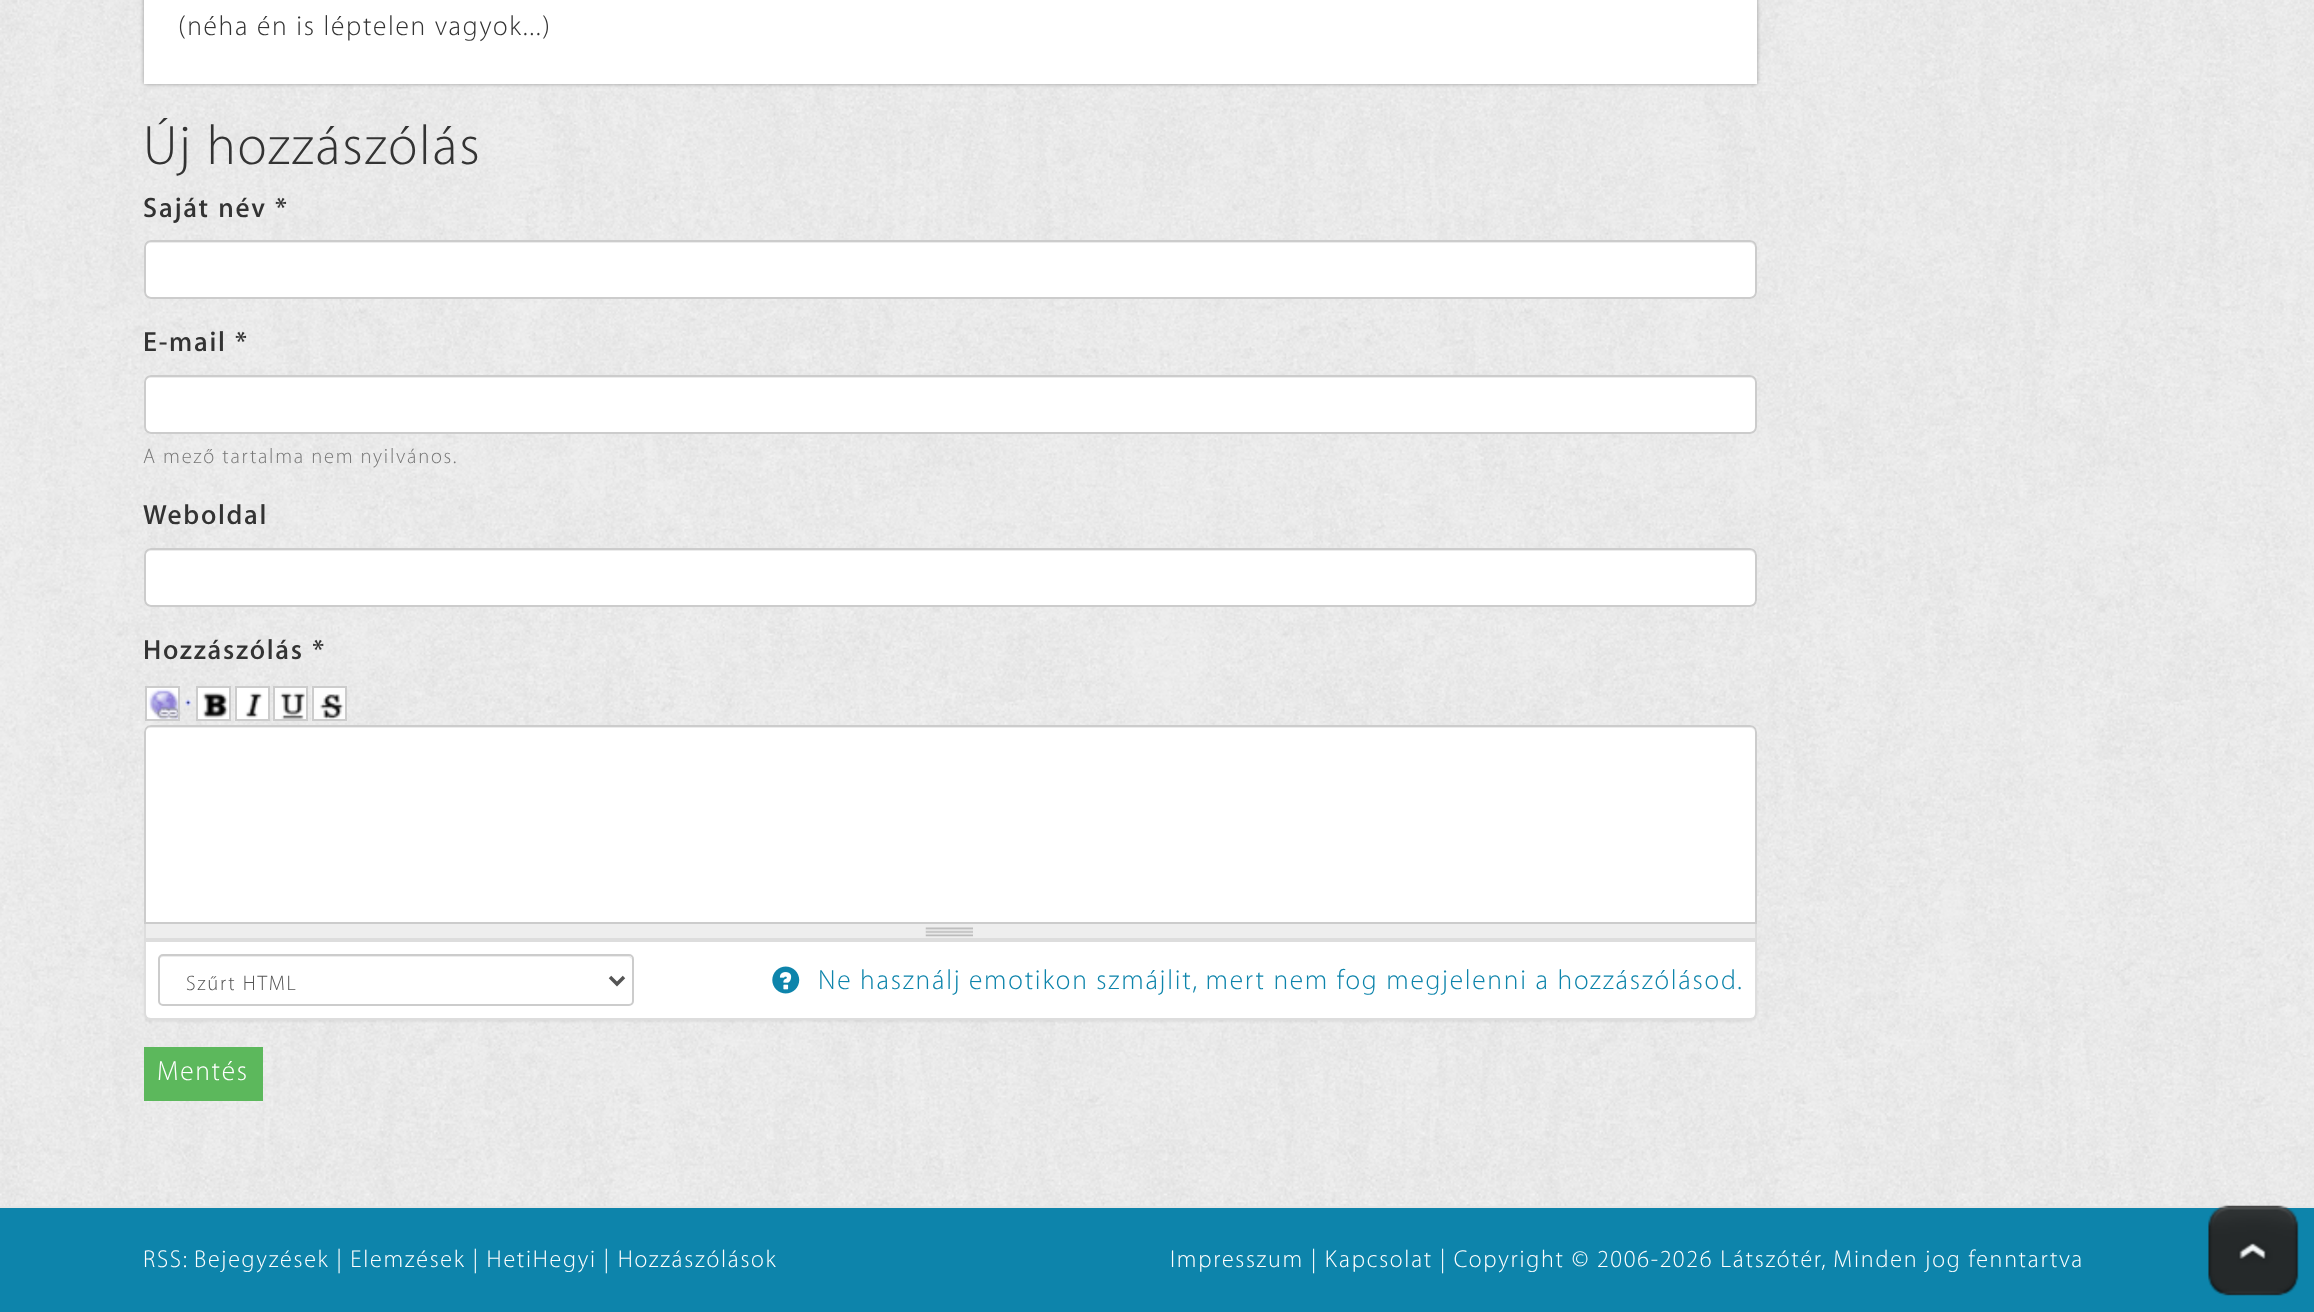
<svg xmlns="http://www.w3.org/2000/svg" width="2314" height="1312">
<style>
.a{font:100 28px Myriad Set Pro;letter-spacing:1.75px;fill:#333}
.b{font:100 56px Myriad Set Pro;letter-spacing:1.75px;fill:#333}
.c{font:600 28px Myriad Set Pro;letter-spacing:1.75px;fill:#333}
.d{font:100 21px Myriad Set Pro;letter-spacing:1.75px;fill:#777}
.e{font:100 21px Myriad Set Pro;letter-spacing:1.75px;fill:#555}
.f{font:100 28px Myriad Set Pro;letter-spacing:1.75px;fill:#0d84ab}
.g{font:100 28px Myriad Set Pro;letter-spacing:1.75px;fill:#fff}
.h{font:100 24.5px Myriad Set Pro;letter-spacing:1.75px;fill:#fff}
</style>
<rect width="100%" height="100%" fill="#fff"/>
<image href="1.png" x="0" y="0" width="2314" height="1206"/>
<path fill="#999" filter="blur(2px)" d="M144 -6h1613v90H144z"/>
<path fill="#fff" d="M144 0h1613v84H144z"/>
<rect fill="#fff" x="144" y="240" width="1613" height="59" rx="7"/>
<path fill="#ececec" d="M150 243h1600c3 0 5 3 5 5v-1c0-3-2-5-5-5h-1600c-3 0-5 2-5 5v1c0-2 3-5 5-5z"/>
<rect fill="none" stroke="#ccc" stroke-width="2" x="145" y="241" width="1611" height="57" rx="6"/>
<rect fill="#fff" x="144" y="375" width="1613" height="59" rx="7"/>
<path fill="#ececec" d="M150 378h1600c3 0 5 2 5 5c0-3-1-7-5-7h-1600c-4 0-5 4-5 7c0-3 3-5 5-5z"/>
<rect fill="none" stroke="#ccc" stroke-width="2" x="145" y="376" width="1611" height="57" rx="6"/>
<rect fill="#fff" x="144" y="548" width="1613" height="59" rx="7"/>
<path fill="#ececec" d="M150 551h1600c3 0 5 3 5 5v-1c0-3-2-5-5-5h-1600c-3 0-5 2-5 5v1c0-2 3-5 5-5z"/>
<rect fill="none" stroke="#ccc" stroke-width="2" x="145" y="549" width="1611" height="57" rx="6"/>
<image href="2.png" x="147" y="688" width="34" height="33"/>
<path fill="none" stroke="#ccc" stroke-width="2" d="M146 687h33v33H146z"/>
<image href="3.png" x="185" y="699" width="7" height="7"/>
<image href="4.png" x="198" y="688" width="31" height="31"/>
<path fill="none" stroke="#ccc" stroke-width="2" d="M197 687h33v33H197z"/>
<image href="5.png" x="234" y="687" width="34" height="34"/>
<path fill="none" stroke="#ccc" stroke-width="2" d="M236 687h33v33H236z"/>
<image href="6.png" x="275" y="688" width="31" height="31"/>
<path fill="none" stroke="#ccc" stroke-width="2" d="M274 687h33v33H274z"/>
<image href="7.png" x="311" y="687" width="34" height="34"/>
<path fill="none" stroke="#ccc" stroke-width="2" d="M313 687h33v33H313z"/>
<path fill="#fff" d="M151 725h1599c4 0 7 3 7 7v192h-1613v-192c0-4 3-7 7-7z"/>
<path fill="#ececec" d="M150 728h1600c3 0 5 2 5 5c0-3-1-7-5-7h-1600c-4 0-5 4-5 7c0-3 3-5 5-5z"/>
<path fill="none" stroke="#ccc" stroke-width="2" d="M151 726h1599c3.5 0 6 2.5 6 6v191h-1611v-191c0-3.5 2.5-6 6-6z"/>
<path fill="#eee" d="M146 924h1609v14H146z"/>
<image href="8.png" x="925" y="927" width="48" height="10"/>
<rect fill="#0000000d" filter="blur(1px)" x="144" y="942" width="1613" height="80" rx="7"/>
<path fill="#ddd" d="M1755 924h2v16H1755z"/>
<path fill="#ddd" d="M144 938h1613v2H144z"/>
<path fill="#ddd" d="M144 924h2v16H144z"/>
<path fill="#fff" stroke="#ddd" stroke-width="2" d="M145 941h1611v72c0 3.5-2.5 6-6 6h-1599c-3.5 0-6-2.5-6-6z"/>
<path fill="#ececec" d="M163 957h465c2 0 4 2 4 4c0-3-1-5-4-5h-465c-3 0-4 2-4 5c0-2 2-4 4-4z"/>
<rect fill="none" stroke="#ccc" stroke-width="2" x="159" y="955" width="474" height="50" rx="4"/>
<path fill="none" stroke="#555" stroke-width="3.5" d="M610 977l7 7l7-7"/>
<image href="9.png" x="772" y="966" width="28" height="28"/>
<path fill="#5cb85c" d="M144 1047h119v54H144z"/>
<path fill="#0d84ab" d="M0 1208h2314v104H0z"/>
<path fill="#e5e5e5" d="M0 1206h2314v2H0z"/>
<image href="10.png" x="2208" y="1205" width="91" height="91"/>
<text class="a" x="178" y="35">(néha én is léptelen vagyok...)</text>
<text class="b" x="143" y="164">Új hozzászólás</text>
<text class="c" x="143" y="217">Saját név *</text>
<text class="c" x="143" y="351">E-mail *</text>
<text class="d" x="143" y="463">A mező tartalma nem nyilvános.</text>
<text class="c" x="143" y="524">Weboldal</text>
<text class="c" x="143" y="659">Hozzászólás *</text>
<text class="e" x="186" y="990">Szűrt HTML</text>
<text class="f" x="818" y="989">Ne használj emotikon szmájlit, mert nem fog megjelenni a hozzászólásod.</text>
<text class="g" x="157" y="1080">Mentés</text>
<text class="h" x="143" y="1267">RSS: Bejegyzések | Elemzések | HetiHegyi | Hozzászólások</text>
<text class="h" x="1170" y="1267">Impresszum | Kapcsolat | Copyright © 2006-2026 Látszótér, Minden jog fenntartva</text>
</svg>
